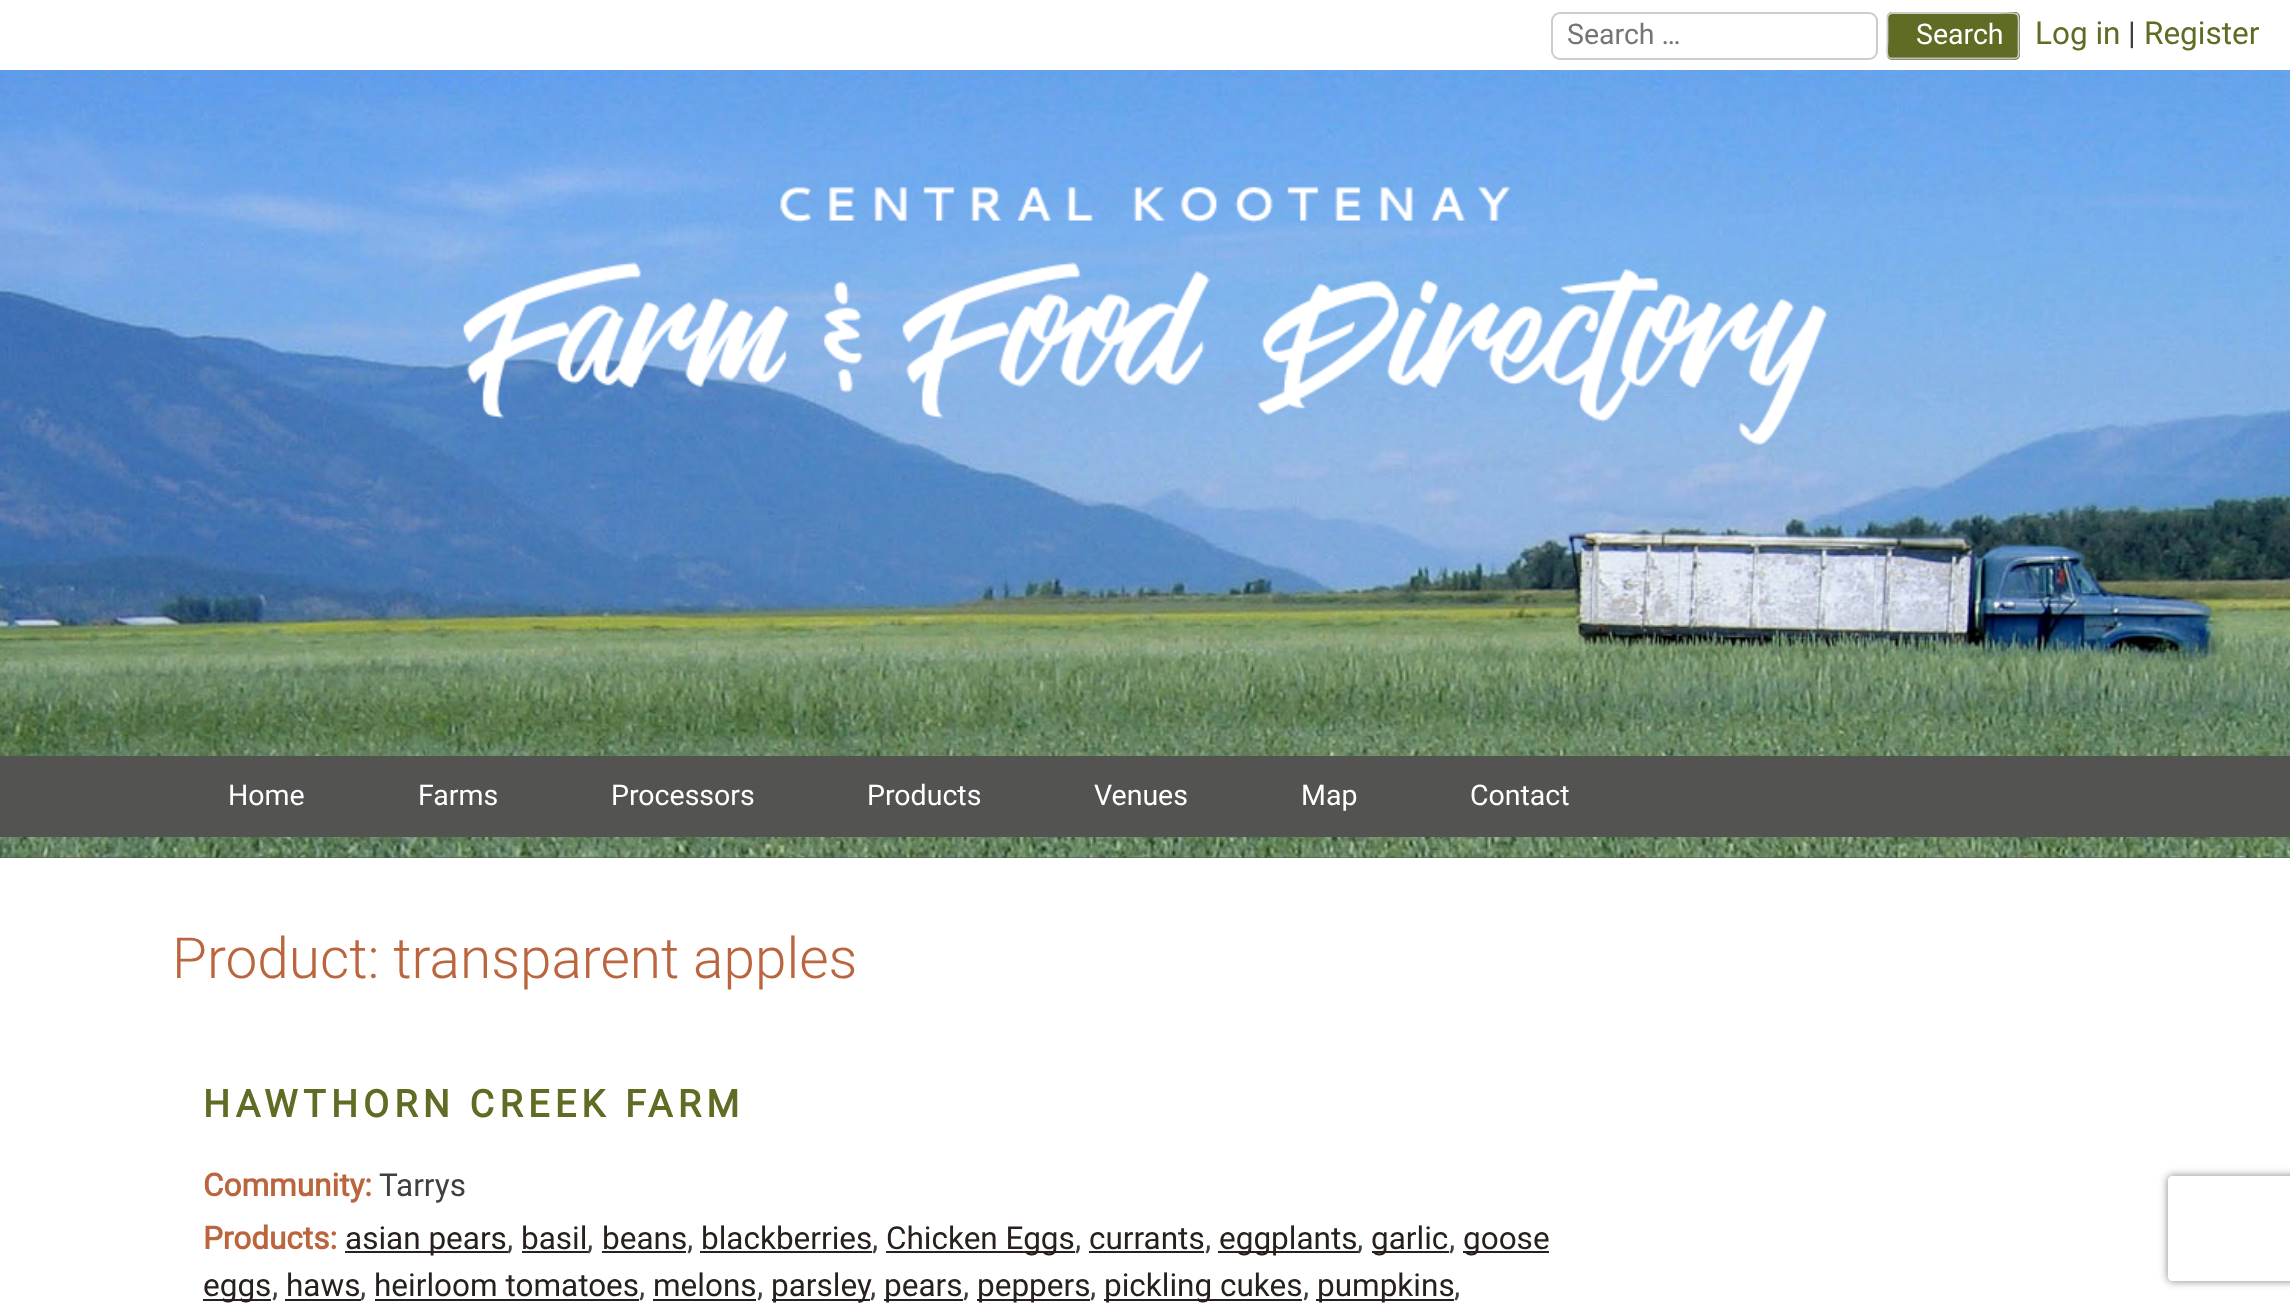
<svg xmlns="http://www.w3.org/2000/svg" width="2290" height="1305">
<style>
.a{font:28.5px Roboto;fill:#757575}
.b{font:28.5px Roboto;fill:#fff}
.c{font:31.5px Roboto;fill:#606b24}
.d{font:31.5px Roboto;fill:#404040}
.e{font:300 56.75px Roboto;fill:#ba653e}
.f{font:bold 37.75px Roboto;letter-spacing:5.25px;fill:#606b24}
.g{font:bold 31.5px Roboto;fill:#ba653e}
.h{font:31.5px Roboto;fill:#28201d}
</style>
<defs>
<clipPath id="clip1"><path d="M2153 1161h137v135h-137zm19 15h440c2 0 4 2 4 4v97c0 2-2 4-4 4h-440c-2 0-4-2-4-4v-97c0-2 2-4 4-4z" clip-rule="evenodd"/></clipPath>
</defs>
<rect width="100%" height="100%" fill="#fff"/>
<rect fill="none" stroke="#ccc" stroke-width="2" x="1552" y="13" width="325" height="46" rx="8"/>
<rect fill="#606b24" x="1887" y="12" width="133" height="48" rx="5"/>
<path fill="none" stroke="#bbb" stroke-width="1.8" d="M2017.5 57.5l-3.5 1h-122.5l-3-1"/>
<path fill="none" stroke="#ccc" stroke-width="1.8" d="M1888.5 57.5c-2.5-3-1-12.5-1-15.5v-18.5c0-3-1.5-10.5 4.5-10.5h102c29 0 24.5-4.5 24.5 23v12c0 2.5 1 7-1 9.5"/>
<path fill="#535452" d="M0 857h2290v1H0z"/>
<image href="1.png" x="0" y="70" width="2290" height="788"/>
<image href="2.png" x="463" y="186" width="1365" height="259"/>
<path fill="#535452" d="M0 756h2290v81H0z"/>
<path fill="#28201d" d="M345 1251h163v2H345z"/>
<path fill="#28201d" d="M522 1251h66v2H522z"/>
<path fill="#28201d" d="M602 1251h84v2H602z"/>
<path fill="#28201d" d="M700 1251h172v2H700z"/>
<path fill="#28201d" d="M886 1251h189v2H886z"/>
<path fill="#28201d" d="M1089 1251h115v2H1089z"/>
<path fill="#28201d" d="M1218 1251h140v2H1218z"/>
<path fill="#28201d" d="M1372 1251h77v2H1372z"/>
<path fill="#28201d" d="M1463 1251h86v2H1463z"/>
<path fill="#28201d" d="M203 1299h68v2H203z"/>
<path fill="#28201d" d="M285 1299h76v2H285z"/>
<path fill="#28201d" d="M375 1299h264v2H375z"/>
<path fill="#28201d" d="M653 1299h103v2H653z"/>
<path fill="#28201d" d="M772 1299h98v2H772z"/>
<path fill="#28201d" d="M884 1299h79v2H884z"/>
<path fill="#28201d" d="M977 1299h113v2H977z"/>
<path fill="#28201d" d="M1104 1299h198v2H1104z"/>
<path fill="#28201d" d="M1316 1299h138v2H1316z"/>
<g clip-path="url(#clip1)">
<rect fill="#808080" filter="blur(4.5px)" x="2168" y="1176" width="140" height="105" rx="4"/>
</g>
<text class="a" x="1567" y="44">Search …</text>
<text class="b" x="1916" y="44">Search</text>
<text class="c" x="2035" y="44">Log in</text>
<text class="d" x="2128" y="44">|</text>
<text class="c" x="2144" y="44">Register</text>
<text class="b" x="228" y="805">Home</text>
<text class="b" x="418" y="805">Farms</text>
<text class="b" x="611" y="805">Processors</text>
<text class="b" x="867" y="805">Products</text>
<text class="b" x="1094" y="805">Venues</text>
<text class="b" x="1301" y="805">Map</text>
<text class="b" x="1470" y="805">Contact</text>
<text class="e" x="172" y="978">Product: transparent apples</text>
<text class="f" x="203" y="1117">HAWTHORN CREEK FARM</text>
<text class="g" x="203" y="1196">Community:</text>
<text class="d" x="379" y="1196">Tarrys</text>
<text class="g" x="203" y="1249">Products:</text>
<text class="h" x="345" y="1249">asian pears</text>
<text class="d" x="507" y="1249">,</text>
<text class="h" x="521" y="1249">basil</text>
<text class="d" x="587" y="1249">,</text>
<text class="h" x="602" y="1249">beans</text>
<text class="d" x="687" y="1249">,</text>
<text class="h" x="701" y="1249">blackberries</text>
<text class="d" x="872" y="1249">,</text>
<text class="h" x="886" y="1249">Chicken Eggs</text>
<text class="d" x="1075" y="1249">,</text>
<text class="h" x="1089" y="1249">currants</text>
<text class="d" x="1205" y="1249">,</text>
<text class="h" x="1219" y="1249">eggplants</text>
<text class="d" x="1357" y="1249">,</text>
<text class="h" x="1371" y="1249">garlic</text>
<text class="d" x="1449" y="1249">,</text>
<text class="h" x="1463" y="1249">goose</text>
<text class="h" x="203" y="1296">eggs</text>
<text class="d" x="272" y="1296">,</text>
<text class="h" x="286" y="1296">haws</text>
<text class="d" x="360" y="1296">,</text>
<text class="h" x="374" y="1296">heirloom tomatoes</text>
<text class="d" x="639" y="1296">,</text>
<text class="h" x="653" y="1296">melons</text>
<text class="d" x="757" y="1296">,</text>
<text class="h" x="771" y="1296">parsley</text>
<text class="d" x="870" y="1296">,</text>
<text class="h" x="884" y="1296">pears</text>
<text class="d" x="963" y="1296">,</text>
<text class="h" x="977" y="1296">peppers</text>
<text class="d" x="1090" y="1296">,</text>
<text class="h" x="1104" y="1296">pickling cukes</text>
<text class="d" x="1303" y="1296">,</text>
<text class="h" x="1317" y="1296">pumpkins</text>
<text class="d" x="1454" y="1296">,</text>
</svg>
